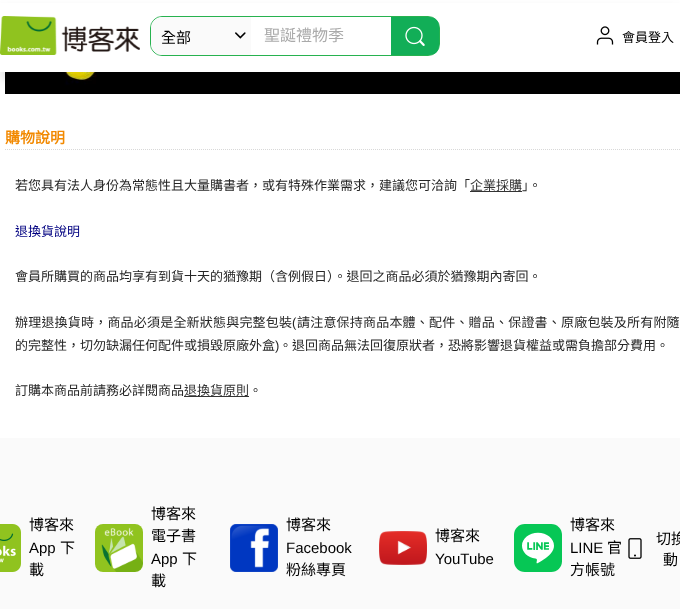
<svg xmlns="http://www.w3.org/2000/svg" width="680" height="609">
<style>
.a{font:15px Noto Sans CJK TC;fill:#000}
.b{font:16px Noto Sans CJK TC;fill:#aaa}
.c{font:13px Noto Sans CJK TC;fill:#000}
.d{font:bold 15px Noto Sans CJK TC;fill:#f28900}
.e{font:13px Noto Sans CJK TC;fill:#262626}
.f{font:13px Noto Sans CJK TC;fill:#333}
.g{font:13px Noto Sans CJK TC;fill:#000080}
.h{font:13px Noto Sans CJK TC;letter-spacing:0.2px;fill:#262626}
.i{font:13px Liberation Sans;letter-spacing:0.2px;fill:#262626}
.j{font:13px Liberation Sans;fill:#262626}
.k{font:15px Liberation Sans;fill:#000}
</style>
<rect width="100%" height="100%" fill="#fff"/>
<image href="5.png" x="5" y="72" width="675" height="22"/>
<path fill="#0000001a" filter="blur(4px)" d="M0 8h680v72H0z"/>
<path fill="#fff" d="M0 3h680v69H0z"/>
<image href="1.png" x="0" y="16" width="140" height="39"/>
<rect fill="none" stroke="#27b24f" x="150.5" y="16.5" width="289" height="39" rx="11.5"/>
<path fill="#fafafa" d="M162 17h89v38h-89c-6 0-11-5-11-11v-16c0-6 5-11 11-11z"/>
<image href="2.png" x="235" y="32" width="11" height="7"/>
<path fill="#12ae57" d="M391 17h39c5 0 9 4 9 9v20c0 5-4 9-9 9h-39z"/>
<image href="3.png" x="405" y="26" width="20" height="20"/>
<image href="4.png" x="596" y="26" width="18" height="19"/>
<path fill="none" stroke="#d8d8d8" stroke-dasharray="1 1" d="M5 149.5h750"/>
<path fill="#333" d="M470 191h52v1H470z"/>
<path fill="#333" d="M184 396h65v1H184z"/>
<path fill="#fafafa" d="M0 438h680v171H0z"/>
<image href="6.png" x="0" y="524" width="21" height="48"/>
<image href="7.png" x="95" y="524" width="48" height="48"/>
<image href="8.png" x="230" y="524" width="48" height="48"/>
<image href="9.png" x="379" y="531" width="48" height="34"/>
<image href="10.png" x="514" y="524" width="48" height="48"/>
<image href="11.png" x="628" y="538" width="14" height="21"/>
<text class="a" x="161" y="43">全部</text>
<text class="b" x="264" y="41">聖誕禮物季</text>
<text class="c" x="622" y="42">會員登入</text>
<text class="d" x="5" y="143">購物說明</text>
<text class="e" x="15" y="190">若您具有法人身份為常態性且大量購書者，或有特殊作業需求，建議您可洽詢「</text>
<text class="f" x="470" y="190">企業採購</text>
<text class="e" x="522" y="190">」。</text>
<text class="g" x="15" y="236">退換貨說明</text>
<text class="e" x="15" y="281">會員所購買的商品均享有到貨十天的猶豫期（含例假日）。退回之商品必須於猶豫期內寄回。</text>
<text class="h" x="15" y="327">辦理退換貨時，商品必須是全新狀態與完整包裝</text>
<text class="i" x="292" y="327">(</text>
<text class="h" x="297" y="327">請注意保持商品本體、配件、贈品、保證書、原廠包裝及所有附隨</text>
<text class="e" x="15" y="350">的完整性，切勿缺漏任何配件或損毀原廠外盒</text>
<text class="j" x="275" y="350">)</text>
<text class="e" x="279" y="350">。退回商品無法回復原狀者，恐將影響退貨權益或需負擔部分費用。</text>
<text class="e" x="15" y="395">訂購本商品前請務必詳閱商品</text>
<text class="f" x="184" y="395">退換貨原則</text>
<text class="e" x="249" y="395">。</text>
<text class="a" x="29" y="530">博客來</text>
<text class="k" x="29" y="553">App</text>
<text class="a" x="60" y="553">下</text>
<text class="a" x="29" y="575">載</text>
<text class="a" x="151" y="519">博客來</text>
<text class="a" x="151" y="541">電子書</text>
<text class="k" x="151" y="564">App</text>
<text class="a" x="182" y="564">下</text>
<text class="a" x="151" y="586">載</text>
<text class="a" x="286" y="530">博客來</text>
<text class="k" x="286" y="553">Facebook</text>
<text class="a" x="286" y="575">粉絲專頁</text>
<text class="a" x="435" y="541">博客來</text>
<text class="k" x="435" y="564">YouTube</text>
<text class="a" x="570" y="530">博客來</text>
<text class="k" x="570" y="553">LINE</text>
<text class="a" x="607" y="553">官</text>
<text class="a" x="570" y="575">方帳號</text>
<text class="a" x="656" y="544">切換</text>
<text class="a" x="663" y="565">動</text>
</svg>
